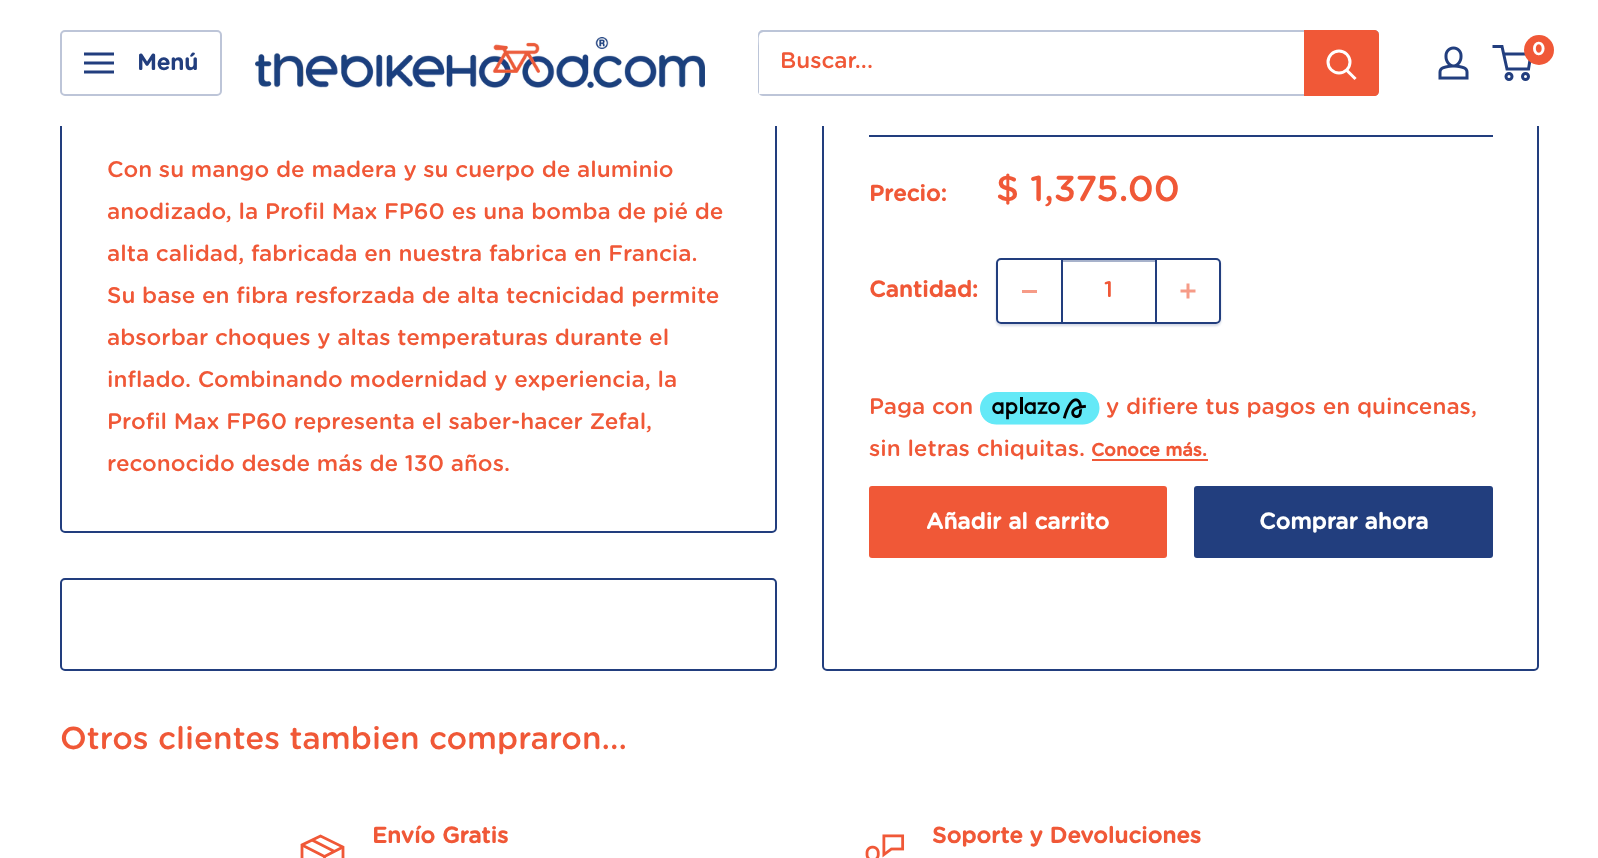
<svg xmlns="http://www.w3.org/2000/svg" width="1598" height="858">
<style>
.a{font:bold 18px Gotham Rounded;fill:#fff}
.b{font:bold 22.5px Gotham Rounded;fill:#223e7e}
.c{font:500 22.5px Gotham Rounded;fill:#f05837}
.d{font:bold 22.5px Gotham Rounded;fill:#f05837}
.e{font:500 36px Gotham Rounded;fill:#f05837}
.f{font:bold 18px Gotham Rounded;fill:#f05837}
.g{font:bold 22.5px Gotham Rounded;fill:#fff}
.h{font:500 31.5px Gotham Rounded;fill:#f05837}
</style>
<defs>
<clipPath id="clip1"><path d="M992 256h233v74h-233zm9 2h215c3 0 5 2 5 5v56c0 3-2 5-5 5h-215c-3 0-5-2-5-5v-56c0-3 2-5 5-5z" clip-rule="evenodd"/></clipPath>
</defs>
<rect width="100%" height="100%" fill="#fff"/>
<rect fill="none" stroke="#223e7e" stroke-width="2" x="61" y="22" width="715" height="510" rx="4"/>
<rect fill="none" stroke="#223e7e" stroke-width="2" x="823" y="-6" width="715" height="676" rx="4"/>
<path fill="#fff" d="M60 0h1479v126H60z"/>
<image href="1.png" x="255" y="37" width="450" height="51"/>
<image href="2.png" x="1438" y="46" width="31" height="34"/>
<circle fill="none" stroke="#223e7e" stroke-width="3" cx="1509" cy="76.5" r="3"/>
<circle fill="none" stroke="#223e7e" stroke-width="3" cx="1525.5" cy="76.5" r="3"/>
<path fill="none" stroke="#223e7e" stroke-width="3" d="M1503.5 54h27.5l-2.5 15h-21.5l-5-22.5h-9.5"/>
<circle fill="#f05837" cx="1539" cy="50" r="15"/>
<rect fill="none" stroke="#bdc5d8" stroke-width="2" x="61" y="31" width="160" height="64" rx="4"/>
<image href="3.png" x="84" y="52" width="30" height="22"/>
<path fill="#bdc5d8" d="M759 94c1 1 2 2 4 2h611c3 0 5-2 5-5v-56c0-2-1-4-3-4l1 2v57c0 2-2 4-5 4z"/>
<path fill="#223e7e4d" d="M764 32h612l3 1c-1-2-3-3-5-3h-611c-3 0-5 2-5 5v56c0 1 0 2 1 3v-48c0-5-2-14 5-14z"/>
<path fill="#f05837" d="M1304 30h70c3 0 5 2 5 5v56c0 3-2 5-5 5h-70z"/>
<path fill="none" stroke="#fff" stroke-width="3" stroke-linecap="square" d="M1354.5 78l-7.5-7.5"/>
<circle fill="none" stroke="#fff" stroke-width="3" cx="1339" cy="62" r="11"/>
<path fill="#223e7e" d="M869 135h624v2H869z"/>
<g clip-path="url(#clip1)">
<rect fill="#223e7e33" filter="blur(1px)" x="996" y="260" width="225" height="66" rx="5"/>
</g>
<rect fill="none" stroke="#223e7e" stroke-width="2" x="997" y="259" width="223" height="64" rx="4"/>
<path fill="#f69b87" d="M1022 290h15v3H1022z"/>
<path fill="#a7b2cb" d="M1062 260h93v2H1062z"/>
<path fill="#223e7e" d="M1155 260h2v63H1155z"/>
<path fill="#223e7e" d="M1061 260h2v63H1061z"/>
<image href="4.png" x="1180" y="283" width="16" height="16"/>
<image href="5.png" x="980" y="392" width="120" height="33"/>
<path fill="#f05837" d="M1092 459h116v2H1092z"/>
<rect fill="#f05837" x="869" y="486" width="298" height="72" rx="3"/>
<rect fill="#223e7e" x="1194" y="486" width="299" height="72" rx="3"/>
<rect fill="none" stroke="#223e7e" stroke-width="2" x="61" y="579" width="715" height="91" rx="4"/>
<path fill="none" stroke="#f05837" stroke-width="2.8" d="M312 840l22.5 11.5m8.5-4.5l-18.5 9.5l-22.5-11.5m22.5 11.5v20.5"/>
<path fill="none" stroke="#f05837" stroke-width="2.8" stroke-linecap="square" d="M343 847v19l-18.5 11l-22.5-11v-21l18.5-9z"/>
<image href="6.png" x="865" y="834" width="40" height="24"/>
<text class="a" x="1532" y="55">0</text>
<text class="b" x="137" y="70">Menú</text>
<text class="c" x="780" y="68">Buscar...</text>
<text class="c" x="107" y="177">Con su mango de madera y su cuerpo de aluminio</text>
<text class="c" x="107" y="219">anodizado, la Profil Max FP60 es una bomba de pié de</text>
<text class="c" x="107" y="261">alta calidad, fabricada en nuestra fabrica en Francia.</text>
<text class="c" x="107" y="303">Su base en fibra resforzada de alta tecnicidad permite</text>
<text class="c" x="107" y="345">absorbar choques y altas temperaturas durante el</text>
<text class="c" x="107" y="387">inflado. Combinando modernidad y experiencia, la</text>
<text class="c" x="107" y="429">Profil Max FP60 representa el saber-hacer Zefal,</text>
<text class="c" x="107" y="471">reconocido desde más de 130 años.</text>
<text class="d" x="869" y="201">Precio:</text>
<text class="e" x="996" y="201">$ 1,375.00</text>
<text class="d" x="869" y="297">Cantidad:</text>
<text class="c" x="1104" y="297">1</text>
<text class="c" x="869" y="414">Paga con</text>
<text class="c" x="1106" y="414">y difiere tus pagos en quincenas,</text>
<text class="c" x="869" y="456">sin letras chiquitas.</text>
<text class="f" x="1091" y="456">Conoce más.</text>
<text class="g" x="926" y="529">Añadir al carrito</text>
<text class="g" x="1259" y="529">Comprar ahora</text>
<text class="h" x="60" y="749">Otros clientes tambien compraron...</text>
<text class="d" x="372" y="843">Envío Gratis</text>
<text class="d" x="932" y="843">Soporte y Devoluciones</text>
</svg>
